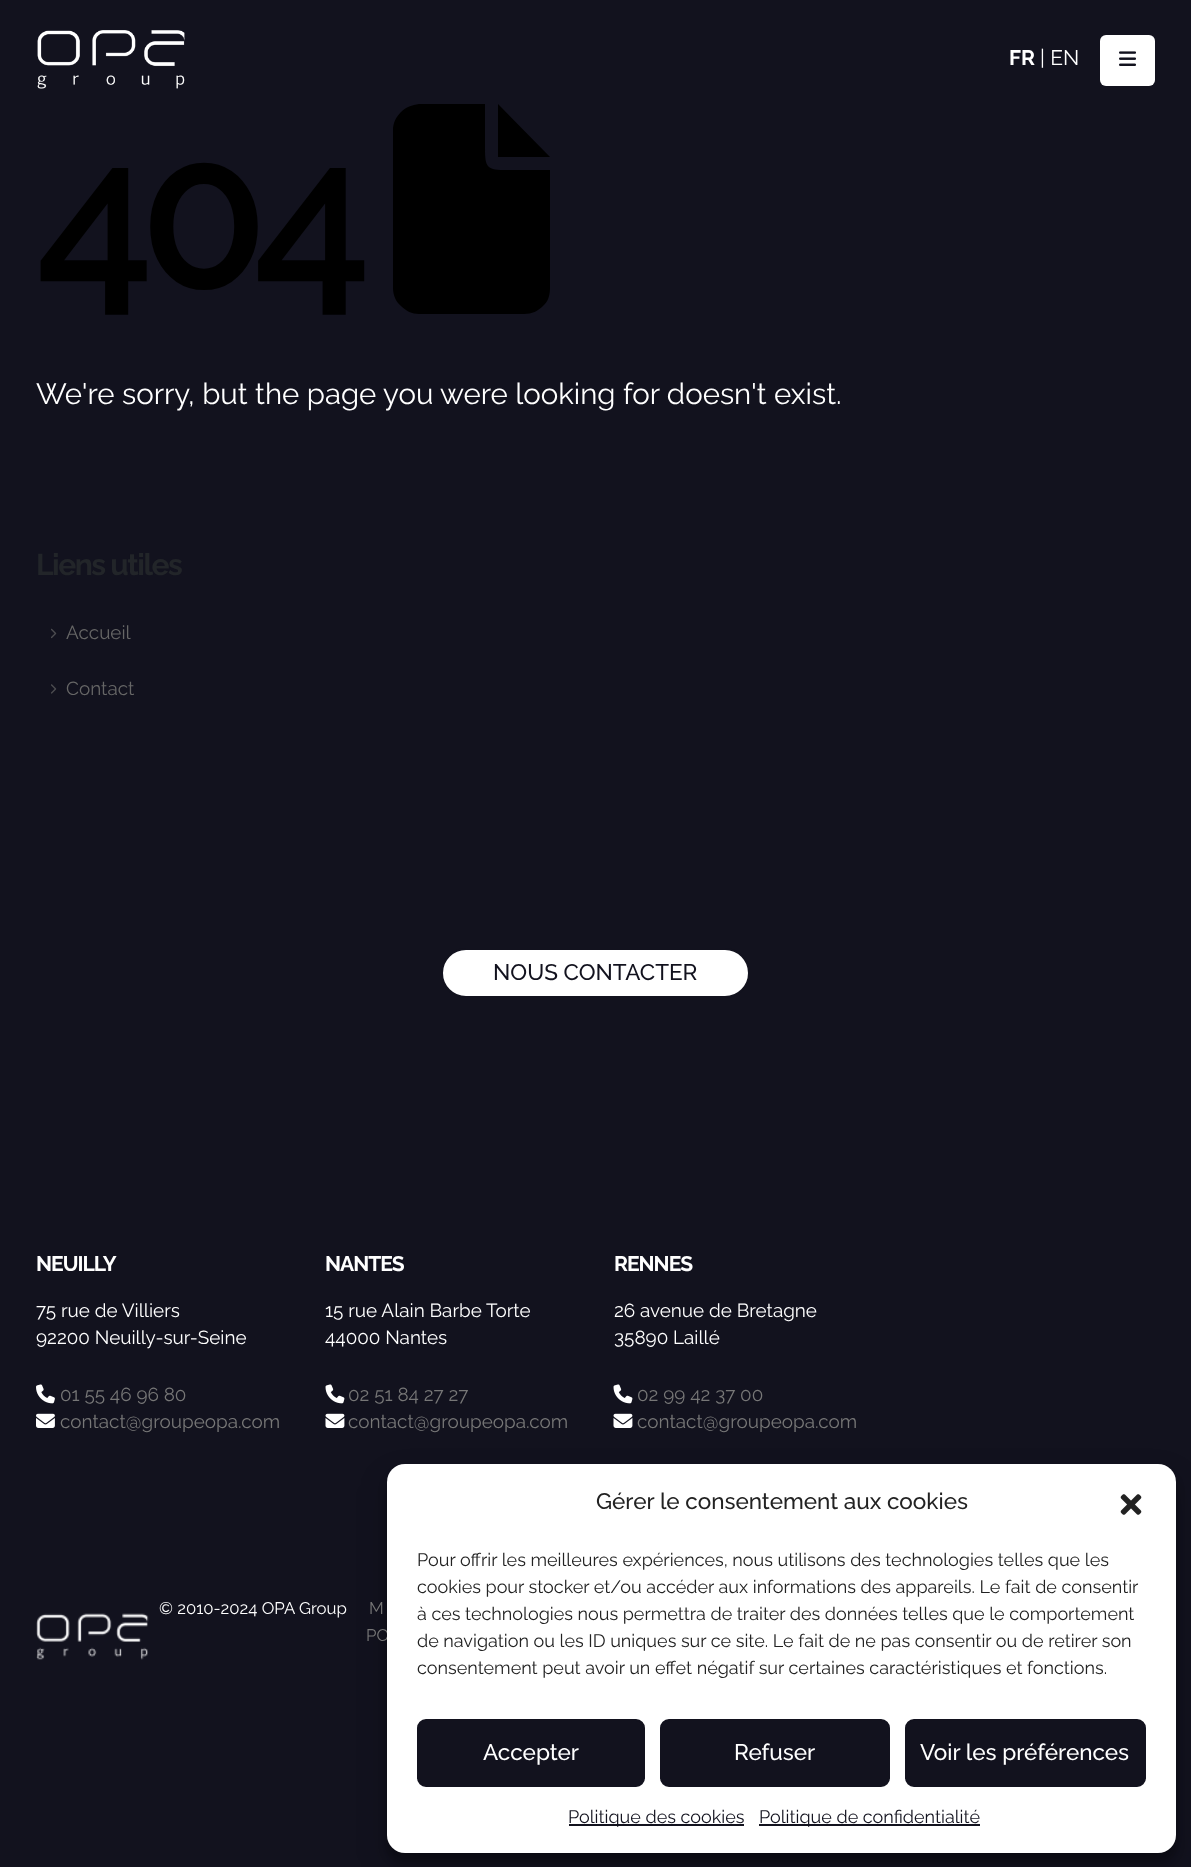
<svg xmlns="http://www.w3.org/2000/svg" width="1191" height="1867">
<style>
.a{font:bold 21px Raleway;fill:#fff}
.b{font:21px Raleway;fill:#fff}
.c{font:600 210px Raleway;letter-spacing:-15px;fill:#000}
.d{font:29.4px Raleway;fill:#fff}
.e{font:bold 30px Raleway;letter-spacing:-1.5px;fill:#222529}
.f{font:18.9px Raleway;fill:#666}
.g{font:500 22.5px Raleway;fill:#12121e}
.h{font:bold 21px Raleway;letter-spacing:-1px;fill:#fff}
.i{font:18.9px Raleway;fill:#fff}
.j{font:18.9px Raleway;fill:#777}
.k{font:16.75px Raleway;fill:#fff}
.l{font:16.75px Raleway;fill:#777}
.m{font:500 22.5px Raleway;fill:#222}
.n{font:18px Raleway;fill:#222}
.o{font:500 22.5px Raleway;fill:#fff}
.p{font:18px Raleway;fill:#12121e}
</style>
<rect width="100%" height="100%" fill="#12121e"/>
<image href="1.png" x="37" y="30" width="148" height="59"/>
<rect fill="#fff" x="1100" y="35" width="55" height="51" rx="6"/>
<image href="2.png" x="1119" y="51" width="17" height="15"/>
<path fill="#000" d="M393 130c0-7 3-13 8-18c5-5 11-7 18-8h66v44c0 20 2 22 22 22h43v118c0 7-2 14-7 18c-5 5-11 8-19 8h-105c-7 0-13-3-18-8c-5-4-8-11-8-18zm157 27h-52v-53z"/>
<image href="3.png" x="51" y="628" width="6" height="11"/>
<image href="4.png" x="51" y="684" width="6" height="10"/>
<rect fill="#fff" stroke="#12121e" stroke-width="2" x="442" y="949" width="307" height="48" rx="24"/>
<image href="5.png" x="36" y="1384" width="19" height="20"/>
<image href="6.png" x="36" y="1413" width="19" height="15"/>
<image href="7.png" x="325" y="1384" width="20" height="20"/>
<image href="8.png" x="325" y="1413" width="20" height="15"/>
<image href="7.png" x="613" y="1384" width="20" height="20"/>
<image href="8.png" x="613" y="1413" width="20" height="15"/>
<image href="9.png" x="36" y="1613" width="113" height="47"/>
<rect fill="#0000003b" filter="blur(4.5px)" x="387" y="1473" width="789" height="389" rx="18"/>
<rect fill="#00000030" filter="blur(15px)" x="387" y="1479" width="789" height="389" rx="18"/>
<text class="a" x="1009" y="65">FR</text>
<text class="b" x="1040" y="65">| EN</text>
<text class="c" x="36" y="288">404</text>
<text class="d" x="36" y="404">We're sorry, but the page you were looking for doesn't exist.</text>
<text class="e" x="36" y="575">Liens utiles</text>
<text class="f" x="66" y="639">Accueil</text>
<text class="f" x="66" y="695">Contact</text>
<text class="g" x="493" y="980">NOUS CONTACTER</text>
<text class="h" x="36" y="1271">NEUILLY</text>
<text class="i" x="36" y="1317">75 rue de Villiers</text>
<text class="i" x="36" y="1344">92200 Neuilly-sur-Seine</text>
<text class="j" x="60" y="1401">01 55 46 96 80</text>
<text class="j" x="60" y="1428">contact@groupeopa.com</text>
<text class="h" x="325" y="1271">NANTES</text>
<text class="i" x="325" y="1317">15 rue Alain Barbe Torte</text>
<text class="i" x="325" y="1344">44000 Nantes</text>
<text class="j" x="348" y="1401">02 51 84 27 27</text>
<text class="j" x="348" y="1428">contact@groupeopa.com</text>
<text class="h" x="614" y="1271">RENNES</text>
<text class="i" x="614" y="1317">26 avenue de Bretagne</text>
<text class="i" x="614" y="1344">35890 Laillé</text>
<text class="j" x="637" y="1401">02 99 42 37 00</text>
<text class="j" x="637" y="1428">contact@groupeopa.com</text>
<text class="k" x="159" y="1614">© 2010-2024 OPA Group</text>
<text class="l" x="369" y="1614">M</text>
<text class="l" x="366" y="1641">PO</text>
<rect fill="#fff" x="387" y="1464" width="789" height="389" rx="18"/>
<text class="m" x="596" y="1509">Gérer le consentement aux cookies</text>
<image href="10.png" x="1120" y="1494" width="22" height="21"/>
<text class="n" x="417" y="1566">Pour offrir les meilleures expériences, nous utilisons des technologies telles que les</text>
<text class="n" x="417" y="1593">cookies pour stocker et/ou accéder aux informations des appareils. Le fait de consentir</text>
<text class="n" x="417" y="1620">à ces technologies nous permettra de traiter des données telles que le comportement</text>
<text class="n" x="417" y="1647">de navigation ou les ID uniques sur ce site. Le fait de ne pas consentir ou de retirer son</text>
<text class="n" x="417" y="1674">consentement peut avoir un effet négatif sur certaines caractéristiques et fonctions.</text>
<rect fill="#12121e" stroke="#12121e" stroke-width="2" x="418" y="1720" width="226" height="66" rx="8"/>
<text class="o" x="483" y="1760">Accepter</text>
<rect fill="#12121e" stroke="#12121e" stroke-width="2" x="661" y="1720" width="228" height="66" rx="8"/>
<text class="o" x="734" y="1760">Refuser</text>
<rect fill="#12121e" stroke="#12121e" stroke-width="2" x="906" y="1720" width="239" height="66" rx="8"/>
<text class="o" x="920" y="1760">Voir les préférences</text>
<path fill="#12121e" d="M569 1824h175v2H569z"/>
<text class="p" x="568" y="1823">Politique des cookies</text>
<path fill="#12121e" d="M759 1824h221v2H759z"/>
<text class="p" x="759" y="1823">Politique de confidentialité</text>
</svg>
